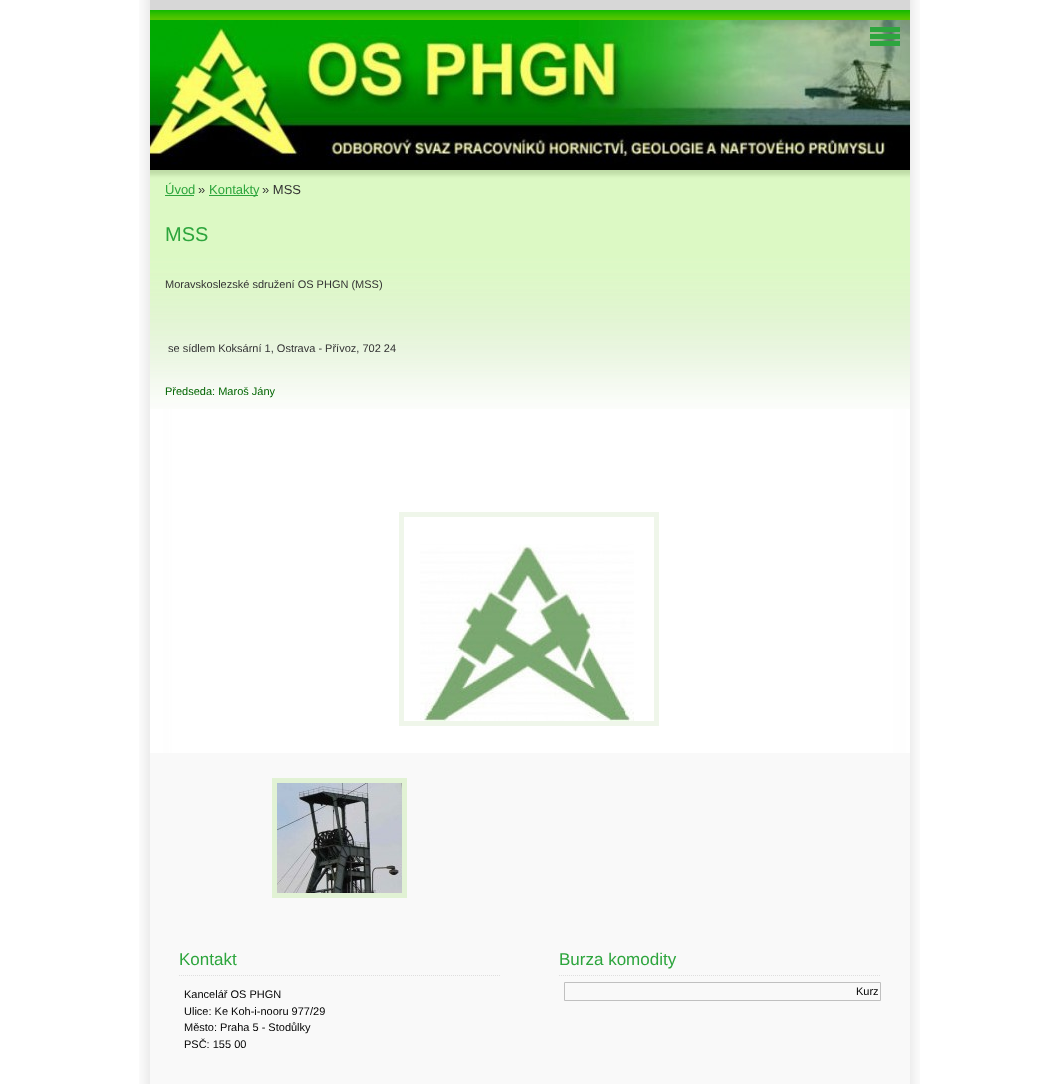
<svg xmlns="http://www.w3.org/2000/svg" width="1059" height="1084">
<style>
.a{font:13px Liberation Sans;fill:#2da53d}
.b{font:13px Liberation Sans;fill:#333}
.c{font:20px Liberation Sans;fill:#2da53d}
.d{font:11px Liberation Sans;fill:#333}
.e{font:11px Liberation Sans;fill:#006400}
.f{font:17px Liberation Sans;fill:#2da53d}
.g{font:11px Liberation Sans;fill:#000}
</style>
<rect width="100%" height="100%" fill="#fff"/>
<image href="1.png" x="139" y="0" width="781" height="1084"/>
<path fill="#fff" d="M909 409h1v344H909z"/>
<image href="2.png" x="150" y="0" width="760" height="20"/>
<image href="3.png" x="150" y="20" width="760" height="150"/>
<path fill="#2da53e" d="M870 27h30v5H870z"/>
<path fill="#2da53e" d="M870 34h30v5H870z"/>
<path fill="#2da53e" d="M870 41h30v5H870z"/>
<image href="4.png" x="150" y="170" width="760" height="239"/>
<path fill="#2da53d" d="M165 195h29v1H165z"/>
<path fill="#2da53d" d="M209 195h49v1H209z"/>
<path fill="none" stroke="#eff6ea" stroke-width="5" d="M401.5 514.5h255v209H401.5z"/>
<image href="5.png" x="420" y="544" width="214" height="177"/>
<path fill="#f9f9f9" d="M150 753h760v331H150z"/>
<path fill="none" stroke="#e1f2d4" stroke-width="5" d="M274.5 780.5h130v115H274.5z"/>
<image href="6.png" x="277" y="783" width="125" height="110"/>
<image href="7.png" x="179" y="975" width="321" height="1"/>
<image href="7.png" x="559" y="975" width="321" height="1"/>
<path fill="none" stroke="#c0c0c0" d="M564.5 982.5h316v18H564.5z"/>
<text class="a" x="165" y="194">Úvod</text>
<text class="b" x="198" y="194">»</text>
<text class="a" x="209" y="194">Kontakty</text>
<text class="b" x="262" y="194">» MSS</text>
<text class="c" x="165" y="241">MSS</text>
<text class="d" x="165" y="288">Moravskoslezské sdružení OS PHGN (MSS)</text>
<text class="d" x="168" y="352">se sídlem Koksární 1, Ostrava - Přívoz, 702 24</text>
<text class="e" x="165" y="395">Předseda: Maroš Jány</text>
<text class="f" x="179" y="965">Kontakt</text>
<text class="g" x="184" y="998">Kancelář OS PHGN</text>
<text class="g" x="184" y="1015">Ulice: Ke Koh-i-nooru 977/29</text>
<text class="g" x="184" y="1031">Město: Praha 5 - Stodůlky</text>
<text class="g" x="184" y="1048">PSČ: 155 00</text>
<text class="f" x="559" y="965">Burza komodity</text>
<text class="g" x="856" y="995">Kurz</text>
</svg>
